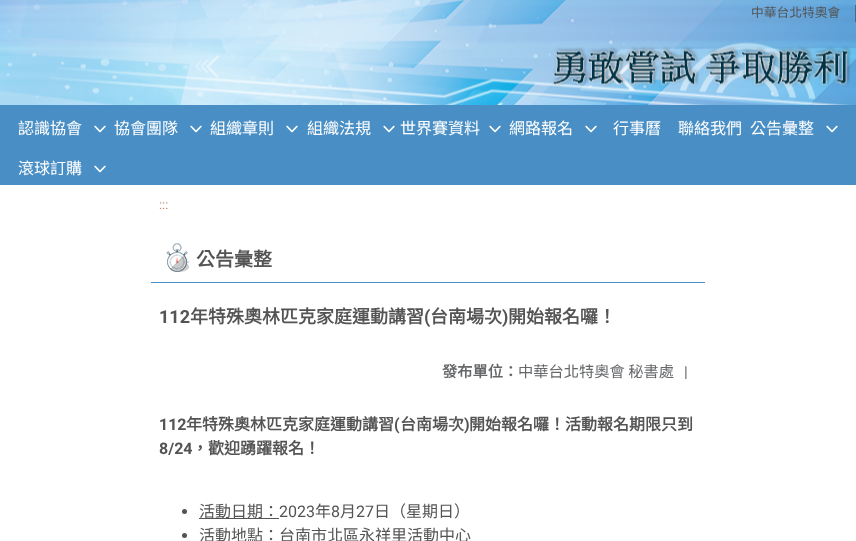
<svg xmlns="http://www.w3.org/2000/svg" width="856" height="541">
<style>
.a{font:12.75px Noto Sans CJK TC;fill:#545454}
.b{font:16px Noto Sans CJK TC;fill:#fff}
.c{font:12.75px Roboto;fill:#b68d7a}
.d{font:bold 19px Noto Sans CJK TC;fill:#545454}
.e{font:bold 18px Roboto;fill:#545454}
.f{font:bold 18px Noto Sans CJK TC;fill:#545454}
.g{font:bold 15.25px Noto Sans CJK TC;fill:#656769}
.h{font:15.25px Noto Sans CJK TC;fill:#656769}
.i{font:15.25px Roboto;fill:#656769}
.j{font:bold 16px Roboto;fill:#545454}
.k{font:bold 16px Noto Sans CJK TC;fill:#545454}
.l{font:16px Noto Sans CJK TC;fill:#545454}
.m{font:16px Roboto;fill:#545454}
</style>
<rect width="100%" height="100%" fill="#fff"/>
<image href="1.png" x="0" y="0" width="856" height="105"/>
<path fill="#33333380" d="M855 5h1v17H855z"/>
<path fill="#498fc5" d="M0 105h856v80H0z"/>
<image href="2.png" x="94" y="125" width="12" height="8"/>
<image href="2.png" x="190" y="125" width="12" height="8"/>
<image href="2.png" x="286" y="125" width="12" height="8"/>
<image href="2.png" x="383" y="125" width="12" height="8"/>
<image href="2.png" x="489" y="125" width="12" height="8"/>
<image href="2.png" x="585" y="125" width="12" height="8"/>
<image href="2.png" x="826" y="125" width="12" height="8"/>
<image href="2.png" x="94" y="165" width="12" height="8"/>
<image href="3.png" x="166" y="243" width="24" height="29"/>
<path fill="#498ec5" d="M151 282h554v1H151z"/>
<circle fill="#545454" cx="184.5" cy="511.5" r="2.5"/>
<path fill="#545454" d="M199 518h80v1H199z"/>
<circle fill="#545454" cx="184.5" cy="535.5" r="2.5"/>
<text class="a" x="751" y="17">中華台北特奧會</text>
<text class="b" x="18" y="134">認識協會</text>
<text class="b" x="114" y="134">協會團隊</text>
<text class="b" x="210" y="134">組織章則</text>
<text class="b" x="307" y="134">組織法規</text>
<text class="b" x="400" y="134">世界賽資料</text>
<text class="b" x="509" y="134">網路報名</text>
<text class="b" x="613" y="134">行事曆</text>
<text class="b" x="678" y="134">聯絡我們</text>
<text class="b" x="750" y="134">公告彙整</text>
<text class="b" x="18" y="174">滾球訂購</text>
<text class="c" x="159" y="209">:::</text>
<text class="d" x="196" y="266">公告彙整</text>
<text class="e" x="159" y="323">112</text>
<text class="f" x="190" y="323">年特殊奧林匹克家庭運動講習</text>
<text class="e" x="424" y="323">(</text>
<text class="f" x="430" y="323">台南場次</text>
<text class="e" x="502" y="323">)</text>
<text class="f" x="508" y="323">開始報名囉！</text>
<text class="g" x="442" y="377">發布單位：</text>
<text class="h" x="518" y="377">中華台北特奧會 秘書處</text>
<text class="i" x="684" y="377">|</text>
<text class="j" x="159" y="430">112</text>
<text class="k" x="186" y="430">年特殊奧林匹克家庭運動講習</text>
<text class="j" x="394" y="430">(</text>
<text class="k" x="400" y="430">台南場次</text>
<text class="j" x="464" y="430">)</text>
<text class="k" x="469" y="430">開始報名囉！活動報名期限只到</text>
<text class="j" x="159" y="454">8/24</text>
<text class="k" x="192" y="454">，歡迎踴躍報名！</text>
<text class="l" x="199" y="517">活動日期：</text>
<text class="m" x="279" y="517">2023</text>
<text class="l" x="315" y="517">年</text>
<text class="m" x="331" y="517">8</text>
<text class="l" x="340" y="517">月</text>
<text class="m" x="356" y="517">27</text>
<text class="l" x="374" y="517">日（星期日）</text>
<text class="l" x="199" y="541">活動地點：台南市北區永祥里活動中心</text>
</svg>
